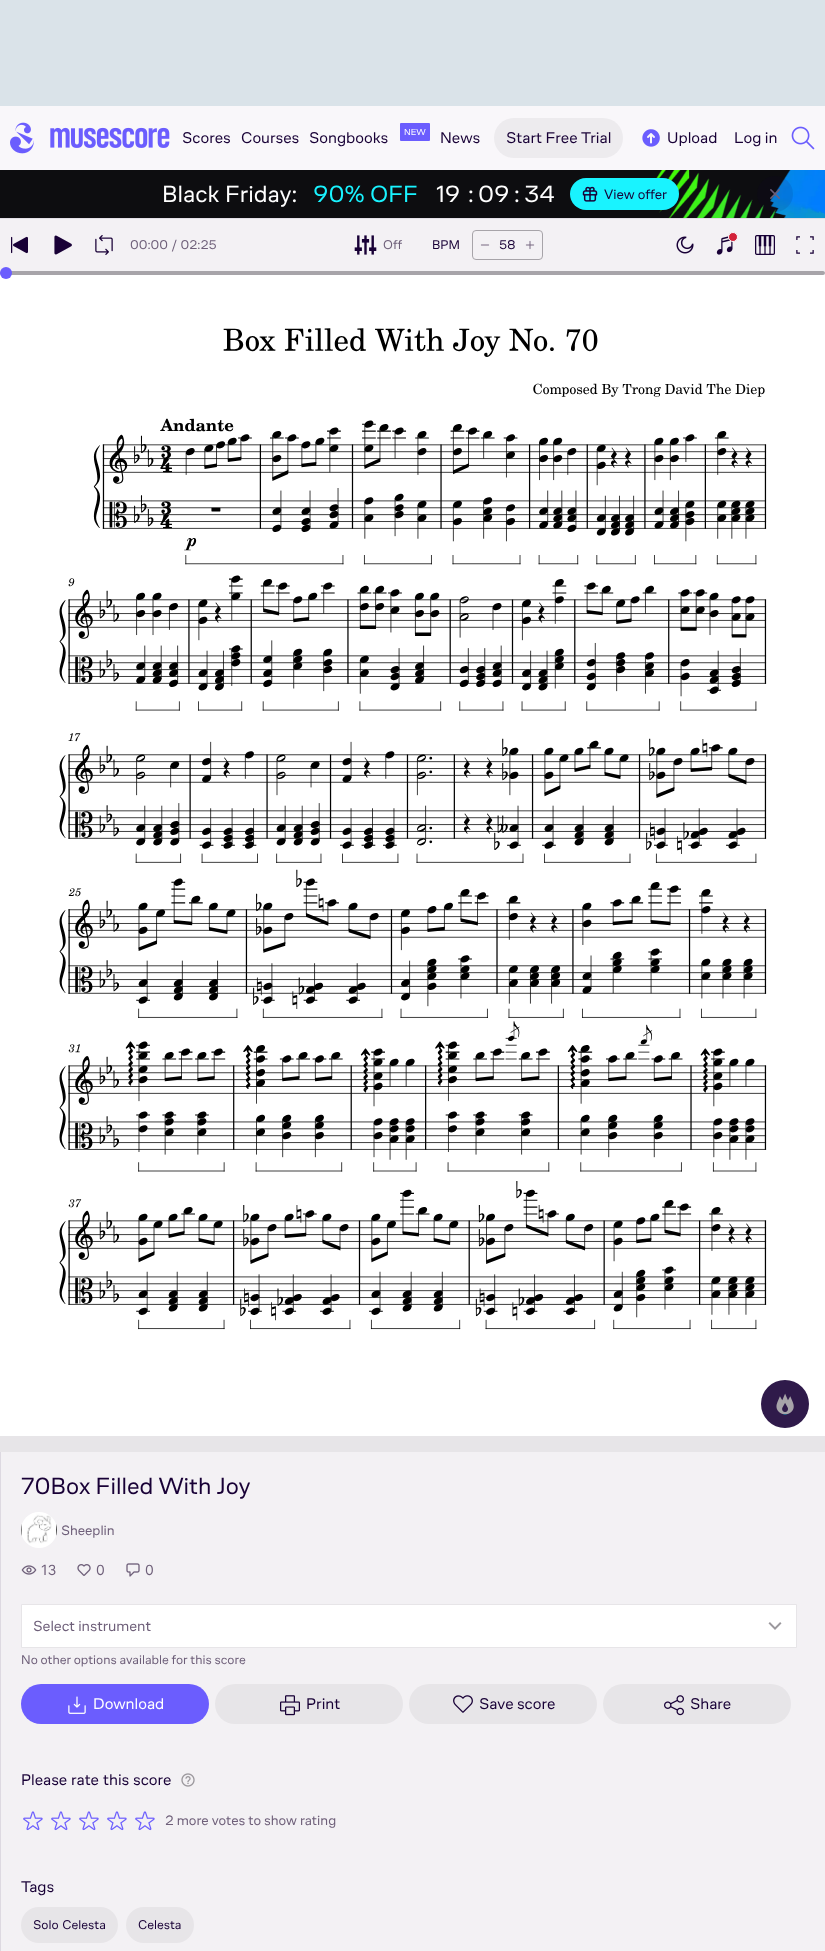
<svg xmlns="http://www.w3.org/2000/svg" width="825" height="1951">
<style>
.a{font:16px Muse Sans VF;fill:#180036}
.b{font:9px Muse Sans VF;fill:#fff}
.c{font:24px Muse Sans VF;fill:#fff}
.d{font:24px Muse Sans VF;fill:#19f3ff}
.e{font:14px Muse Sans VF;fill:#180036}
.f{font:13px Muse Sans VF;fill:#6e5f79}
.g{font:13px Muse Sans VF;fill:#180036}
.h{font:24px Muse Sans VF;fill:#180036}
.i{font:14px Muse Sans VF;fill:#6e5f79}
.j{font:14px Inter;fill:#6e5f79}
.k{font:15px Muse Sans VF;fill:#6e5f79}
.l{font:16px Muse Sans VF;fill:#fff}
</style>
<rect width="100%" height="100%" fill="#f9f7fa"/>
<path fill="#e2dee6" d="M0 218h825v1H0z"/>
<path fill="#dae3e9" d="M0 0h825v106H0z"/>
<image href="1.png" x="10" y="122" width="160" height="32"/>
<rect fill="#6b5dfe" x="400" y="123" width="30" height="18" rx="1"/>
<rect fill="#edebee" x="494" y="118" width="129" height="40" rx="20"/>
<image href="2.png" x="642" y="129" width="18" height="18"/>
<image href="3.png" x="791" y="126" width="24" height="24"/>
<path fill="#0d0d10" d="M0 170h791v48H0z"/>
<image href="5.png" x="656" y="170" width="169" height="48"/>
<rect fill="#19f3ff" x="570" y="178" width="109" height="32" rx="16"/>
<image href="4.png" x="582" y="186" width="16" height="16"/>
<circle fill="#1800361a" cx="775" cy="194" r="18"/>
<image href="6.png" x="770" y="189" width="10" height="10"/>
<path fill="#e7e5e8" d="M0 1436h825v16H0z"/>
<path fill="#fff" d="M0 271h825v1165H0z"/>
<rect fill="#a7a4a9" y="271" width="825" height="4" rx="2"/>
<path fill="#f3f1f4" d="M0 219h825v52H0z"/>
<circle fill="#6b5dfe" cx="6" cy="273" r="6"/>
<image href="7.png" x="11" y="236" width="17" height="18"/>
<image href="8.png" x="54" y="235" width="18" height="20"/>
<image href="9.png" x="95" y="235" width="18" height="20"/>
<image href="10.png" x="354" y="235" width="23" height="20"/>
<rect fill="none" stroke="#a7a4a9" x="472.5" y="230.5" width="70" height="29" rx="3.5"/>
<image href="11.png" x="480" y="244" width="10" height="2"/>
<image href="12.png" x="525" y="240" width="10" height="10"/>
<image href="13.png" x="676" y="236" width="18" height="18"/>
<image href="14.png" x="716" y="236" width="17" height="19"/>
<circle fill="#d32139" stroke="#f9f7fa" cx="733" cy="237" r="4.5"/>
<image href="15.png" x="755" y="235" width="20" height="20"/>
<image href="16.png" x="796" y="236" width="18" height="18"/>
<image href="17.png" x="59" y="328" width="708" height="1002"/>
<circle fill="#2f1a4a" cx="785" cy="1404" r="24"/>
<image href="18.png" x="776" y="1393" width="18" height="22"/>
<path fill="#f3f1f4" d="M1 1452h824v499H1z"/>
<path fill="#ddd9e1" d="M0 1452h1v499H0z"/>
<image href="19.png" x="21" y="1512" width="36" height="36"/>
<image href="20.png" x="21" y="1565" width="16" height="10"/>
<image href="21.png" x="77" y="1564" width="14" height="12"/>
<image href="22.png" x="126" y="1563" width="14" height="14"/>
<path fill="#fff" stroke="#e7e5e8" d="M21.5 1604.5h775v43H21.5z"/>
<image href="23.png" x="768" y="1622" width="14" height="8"/>
<rect fill="#6b5dfe" x="21" y="1684" width="188" height="40" rx="20"/>
<image href="24.png" x="68" y="1696" width="18" height="18"/>
<rect fill="#e7e5e8" x="215" y="1684" width="188" height="40" rx="20"/>
<image href="25.png" x="280" y="1695" width="20" height="21"/>
<rect fill="#e7e5e8" x="409" y="1684" width="188" height="40" rx="20"/>
<image href="26.png" x="453" y="1695" width="20" height="18"/>
<rect fill="#e7e5e8" x="603" y="1684" width="188" height="40" rx="20"/>
<image href="27.png" x="664" y="1695" width="20" height="21"/>
<image href="28.png" x="181" y="1773" width="14" height="14"/>
<image href="29.png" x="23" y="1811" width="20" height="20"/>
<image href="29.png" x="51" y="1811" width="20" height="20"/>
<image href="29.png" x="79" y="1811" width="20" height="20"/>
<image href="29.png" x="107" y="1811" width="20" height="20"/>
<image href="29.png" x="135" y="1811" width="20" height="20"/>
<rect fill="#e7e5e8" x="21" y="1907" width="97" height="36" rx="18"/>
<rect fill="#e7e5e8" x="126" y="1907" width="68" height="36" rx="18"/>
<text class="a" x="182" y="143">Scores</text>
<text class="a" x="241" y="143">Courses</text>
<text class="a" x="309" y="143">Songbooks</text>
<text class="b" x="404" y="135">NEW</text>
<text class="a" x="440" y="143">News</text>
<text class="a" x="506" y="143">Start Free Trial</text>
<text class="a" x="667" y="143">Upload</text>
<text class="a" x="734" y="143">Log in</text>
<text class="c" x="162" y="202">Black</text>
<text class="c" x="225" y="202">Friday:</text>
<text class="d" x="313" y="202">90%</text>
<text class="d" x="370" y="202">OFF</text>
<text class="c" x="436" y="202">19</text>
<text class="c" x="468" y="202">:</text>
<text class="c" x="478" y="202">09</text>
<text class="c" x="514" y="202">:</text>
<text class="c" x="524" y="202">34</text>
<text class="e" x="604" y="199">View offer</text>
<text class="f" x="130" y="249">00:00 / 02:25</text>
<text class="f" x="383" y="249">Off</text>
<text class="g" x="432" y="249">BPM</text>
<text class="g" x="499" y="249">58</text>
<text class="h" x="21" y="1494">70Box Filled With Joy</text>
<text class="i" x="61" y="1535">Sheeplin</text>
<text class="j" x="41" y="1575">13</text>
<text class="j" x="96" y="1575">0</text>
<text class="j" x="145" y="1575">0</text>
<text class="k" x="33" y="1631">Select instrument</text>
<text class="f" x="21" y="1664">No other options available for this score</text>
<text class="l" x="93" y="1709">Download</text>
<text class="a" x="306" y="1709">Print</text>
<text class="a" x="479" y="1709">Save score</text>
<text class="a" x="690" y="1709">Share</text>
<text class="a" x="21" y="1785">Please</text>
<text class="a" x="71" y="1785">rate</text>
<text class="a" x="103" y="1785">this</text>
<text class="a" x="133" y="1785">score</text>
<text class="i" x="165" y="1825">2 more votes to show rating</text>
<text class="a" x="21" y="1892">Tags</text>
<text class="g" x="33" y="1929" word-spacing="1">Solo Celesta</text>
<text class="g" x="138" y="1929">Celesta</text>
</svg>
